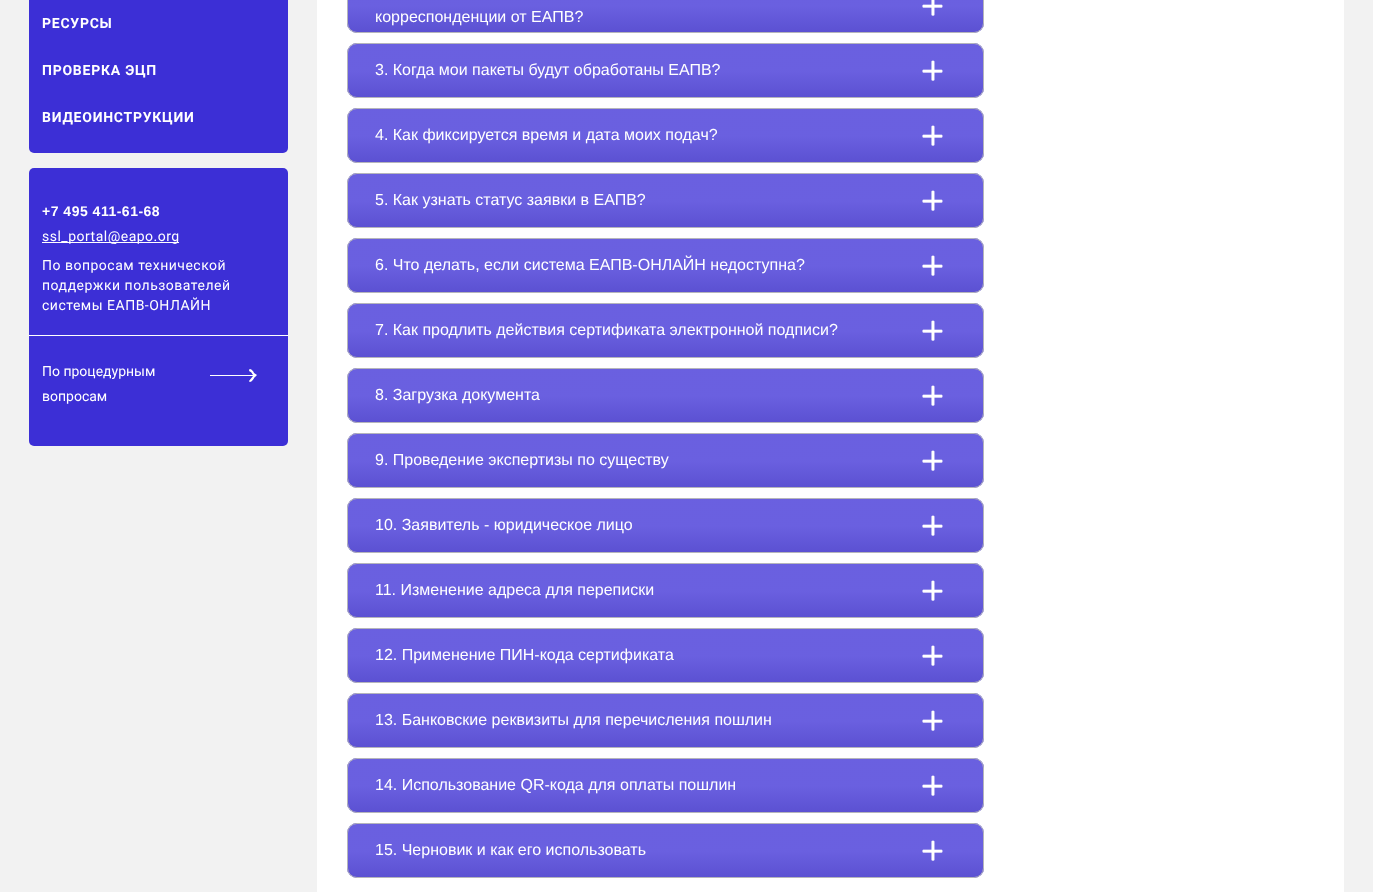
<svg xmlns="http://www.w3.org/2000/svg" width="1373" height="892">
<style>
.a{font:bold 14px Roboto;letter-spacing:0.75px;fill:#fff}
.b{font:bold 14px Liberation Sans;letter-spacing:0.5px;fill:#fff}
.c{font:14px Roboto;letter-spacing:0.5px;fill:#fff}
.d{font:14px Roboto;fill:#fff}
.e{font:16px Liberation Sans;fill:#fff}
</style>
<defs>
<clipPath id="clip1"><rect x="347" y="-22" width="637" height="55" rx="10"/></clipPath>
<linearGradient id="g1" gradientUnits="userSpaceOnUse" x1="666" y1="-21" x2="666" y2="32"><stop offset="0.51" stop-color="#fff" stop-opacity="0.2"/><stop offset="1" stop-color="#b5b5bb" stop-opacity="0.2"/></linearGradient>
<clipPath id="clip2"><rect x="347" y="43" width="637" height="55" rx="10"/></clipPath>
<linearGradient id="g2" gradientUnits="userSpaceOnUse" x1="666" y1="44" x2="666" y2="97"><stop offset="0.51" stop-color="#fff" stop-opacity="0.2"/><stop offset="1" stop-color="#b5b5bb" stop-opacity="0.2"/></linearGradient>
<clipPath id="clip3"><rect x="347" y="108" width="637" height="55" rx="10"/></clipPath>
<linearGradient id="g3" gradientUnits="userSpaceOnUse" x1="666" y1="109" x2="666" y2="162"><stop offset="0.51" stop-color="#fff" stop-opacity="0.2"/><stop offset="1" stop-color="#b5b5bb" stop-opacity="0.2"/></linearGradient>
<clipPath id="clip4"><rect x="347" y="173" width="637" height="55" rx="10"/></clipPath>
<linearGradient id="g4" gradientUnits="userSpaceOnUse" x1="666" y1="174" x2="666" y2="227"><stop offset="0.51" stop-color="#fff" stop-opacity="0.2"/><stop offset="1" stop-color="#b5b5bb" stop-opacity="0.2"/></linearGradient>
<clipPath id="clip5"><rect x="347" y="238" width="637" height="55" rx="10"/></clipPath>
<linearGradient id="g5" gradientUnits="userSpaceOnUse" x1="666" y1="239" x2="666" y2="292"><stop offset="0.51" stop-color="#fff" stop-opacity="0.2"/><stop offset="1" stop-color="#b5b5bb" stop-opacity="0.2"/></linearGradient>
<clipPath id="clip6"><rect x="347" y="303" width="637" height="55" rx="10"/></clipPath>
<linearGradient id="g6" gradientUnits="userSpaceOnUse" x1="666" y1="304" x2="666" y2="357"><stop offset="0.51" stop-color="#fff" stop-opacity="0.2"/><stop offset="1" stop-color="#b5b5bb" stop-opacity="0.2"/></linearGradient>
<clipPath id="clip7"><rect x="347" y="368" width="637" height="55" rx="10"/></clipPath>
<linearGradient id="g7" gradientUnits="userSpaceOnUse" x1="666" y1="369" x2="666" y2="422"><stop offset="0.51" stop-color="#fff" stop-opacity="0.2"/><stop offset="1" stop-color="#b5b5bb" stop-opacity="0.2"/></linearGradient>
<clipPath id="clip8"><rect x="347" y="433" width="637" height="55" rx="10"/></clipPath>
<linearGradient id="g8" gradientUnits="userSpaceOnUse" x1="666" y1="434" x2="666" y2="487"><stop offset="0.51" stop-color="#fff" stop-opacity="0.2"/><stop offset="1" stop-color="#b5b5bb" stop-opacity="0.2"/></linearGradient>
<clipPath id="clip9"><rect x="347" y="498" width="637" height="55" rx="10"/></clipPath>
<linearGradient id="g9" gradientUnits="userSpaceOnUse" x1="666" y1="499" x2="666" y2="552"><stop offset="0.51" stop-color="#fff" stop-opacity="0.2"/><stop offset="1" stop-color="#b5b5bb" stop-opacity="0.2"/></linearGradient>
<clipPath id="clip10"><rect x="347" y="563" width="637" height="55" rx="10"/></clipPath>
<linearGradient id="g10" gradientUnits="userSpaceOnUse" x1="666" y1="564" x2="666" y2="617"><stop offset="0.51" stop-color="#fff" stop-opacity="0.2"/><stop offset="1" stop-color="#b5b5bb" stop-opacity="0.2"/></linearGradient>
<clipPath id="clip11"><rect x="347" y="628" width="637" height="55" rx="10"/></clipPath>
<linearGradient id="g11" gradientUnits="userSpaceOnUse" x1="666" y1="629" x2="666" y2="682"><stop offset="0.51" stop-color="#fff" stop-opacity="0.2"/><stop offset="1" stop-color="#b5b5bb" stop-opacity="0.2"/></linearGradient>
<clipPath id="clip12"><rect x="347" y="693" width="637" height="55" rx="10"/></clipPath>
<linearGradient id="g12" gradientUnits="userSpaceOnUse" x1="666" y1="694" x2="666" y2="747"><stop offset="0.51" stop-color="#fff" stop-opacity="0.2"/><stop offset="1" stop-color="#b5b5bb" stop-opacity="0.2"/></linearGradient>
<clipPath id="clip13"><rect x="347" y="758" width="637" height="55" rx="10"/></clipPath>
<linearGradient id="g13" gradientUnits="userSpaceOnUse" x1="666" y1="759" x2="666" y2="812"><stop offset="0.51" stop-color="#fff" stop-opacity="0.2"/><stop offset="1" stop-color="#b5b5bb" stop-opacity="0.2"/></linearGradient>
<clipPath id="clip14"><rect x="347" y="823" width="637" height="55" rx="10"/></clipPath>
<linearGradient id="g14" gradientUnits="userSpaceOnUse" x1="666" y1="824" x2="666" y2="877"><stop offset="0.51" stop-color="#fff" stop-opacity="0.2"/><stop offset="1" stop-color="#b5b5bb" stop-opacity="0.2"/></linearGradient>
</defs>
<rect width="100%" height="100%" fill="#f2f2f2"/>
<rect fill="#3c2fd6" x="29" y="-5" width="259" height="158" rx="5"/>
<rect fill="#3c2fd6" x="29" y="168" width="259" height="278" rx="5"/>
<path fill="#fff" d="M42 242h137v1H42z"/>
<path fill="#fff" d="M29 335h259v1H29z"/>
<path fill="#fff" fill-rule="evenodd" d="M253 375l-2-3c-1 0-2-1-2-2c1-3 5 2 5 3l3 2l-3 3c0 1-4 6-5 3l4-5h-43v-1z"/>
<path fill="#fff" d="M317 0h1027v892H317z"/>
<rect fill="#4538d8" x="347" y="-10" width="637" height="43" rx="10"/>
<g clip-path="url(#clip1)">
<path fill="url(#g1)" d="M347 0h637v32H347z"/>
</g>
<rect fill="none" stroke="#b5b5bb" x="347.5" y="-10.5" width="636" height="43" rx="9.5"/>
<image href="1.png" x="922" y="0" width="21" height="16"/>
<rect fill="#4538d8" x="347" y="43" width="637" height="55" rx="10"/>
<g clip-path="url(#clip2)">
<path fill="url(#g2)" d="M347 44h637v53H347z"/>
</g>
<rect fill="none" stroke="#b5b5bb" x="347.5" y="43.5" width="636" height="54" rx="9.5"/>
<image href="2.png" x="922" y="60" width="21" height="21"/>
<rect fill="#4538d8" x="347" y="108" width="637" height="55" rx="10"/>
<g clip-path="url(#clip3)">
<path fill="url(#g3)" d="M347 109h637v53H347z"/>
</g>
<rect fill="none" stroke="#b5b5bb" x="347.5" y="108.5" width="636" height="54" rx="9.5"/>
<image href="2.png" x="922" y="125" width="21" height="21"/>
<rect fill="#4538d8" x="347" y="173" width="637" height="55" rx="10"/>
<g clip-path="url(#clip4)">
<path fill="url(#g4)" d="M347 174h637v53H347z"/>
</g>
<rect fill="none" stroke="#b5b5bb" x="347.5" y="173.5" width="636" height="54" rx="9.5"/>
<image href="2.png" x="922" y="190" width="21" height="21"/>
<rect fill="#4538d8" x="347" y="238" width="637" height="55" rx="10"/>
<g clip-path="url(#clip5)">
<path fill="url(#g5)" d="M347 239h637v53H347z"/>
</g>
<rect fill="none" stroke="#b5b5bb" x="347.5" y="238.5" width="636" height="54" rx="9.5"/>
<image href="2.png" x="922" y="255" width="21" height="21"/>
<rect fill="#4538d8" x="347" y="303" width="637" height="55" rx="10"/>
<g clip-path="url(#clip6)">
<path fill="url(#g6)" d="M347 304h637v53H347z"/>
</g>
<rect fill="none" stroke="#b5b5bb" x="347.5" y="303.5" width="636" height="54" rx="9.5"/>
<image href="2.png" x="922" y="320" width="21" height="21"/>
<rect fill="#4538d8" x="347" y="368" width="637" height="55" rx="10"/>
<g clip-path="url(#clip7)">
<path fill="url(#g7)" d="M347 369h637v53H347z"/>
</g>
<rect fill="none" stroke="#b5b5bb" x="347.5" y="368.5" width="636" height="54" rx="9.5"/>
<image href="2.png" x="922" y="385" width="21" height="21"/>
<rect fill="#4538d8" x="347" y="433" width="637" height="55" rx="10"/>
<g clip-path="url(#clip8)">
<path fill="url(#g8)" d="M347 434h637v53H347z"/>
</g>
<rect fill="none" stroke="#b5b5bb" x="347.5" y="433.5" width="636" height="54" rx="9.5"/>
<image href="2.png" x="922" y="450" width="21" height="21"/>
<rect fill="#4538d8" x="347" y="498" width="637" height="55" rx="10"/>
<g clip-path="url(#clip9)">
<path fill="url(#g9)" d="M347 499h637v53H347z"/>
</g>
<rect fill="none" stroke="#b5b5bb" x="347.5" y="498.5" width="636" height="54" rx="9.5"/>
<image href="2.png" x="922" y="515" width="21" height="21"/>
<rect fill="#4538d8" x="347" y="563" width="637" height="55" rx="10"/>
<g clip-path="url(#clip10)">
<path fill="url(#g10)" d="M347 564h637v53H347z"/>
</g>
<rect fill="none" stroke="#b5b5bb" x="347.5" y="563.5" width="636" height="54" rx="9.5"/>
<image href="2.png" x="922" y="580" width="21" height="21"/>
<rect fill="#4538d8" x="347" y="628" width="637" height="55" rx="10"/>
<g clip-path="url(#clip11)">
<path fill="url(#g11)" d="M347 629h637v53H347z"/>
</g>
<rect fill="none" stroke="#b5b5bb" x="347.5" y="628.5" width="636" height="54" rx="9.5"/>
<image href="2.png" x="922" y="645" width="21" height="21"/>
<rect fill="#4538d8" x="347" y="693" width="637" height="55" rx="10"/>
<g clip-path="url(#clip12)">
<path fill="url(#g12)" d="M347 694h637v53H347z"/>
</g>
<rect fill="none" stroke="#b5b5bb" x="347.5" y="693.5" width="636" height="54" rx="9.5"/>
<image href="2.png" x="922" y="710" width="21" height="21"/>
<rect fill="#4538d8" x="347" y="758" width="637" height="55" rx="10"/>
<g clip-path="url(#clip13)">
<path fill="url(#g13)" d="M347 759h637v53H347z"/>
</g>
<rect fill="none" stroke="#b5b5bb" x="347.5" y="758.5" width="636" height="54" rx="9.5"/>
<image href="2.png" x="922" y="775" width="21" height="21"/>
<rect fill="#4538d8" x="347" y="823" width="637" height="55" rx="10"/>
<g clip-path="url(#clip14)">
<path fill="url(#g14)" d="M347 824h637v53H347z"/>
</g>
<rect fill="none" stroke="#b5b5bb" x="347.5" y="823.5" width="636" height="54" rx="9.5"/>
<image href="2.png" x="922" y="840" width="21" height="21"/>
<text class="a" x="42" y="28">РЕСУРСЫ</text>
<text class="a" x="42" y="75">ПРОВЕРКА ЭЦП</text>
<text class="a" x="42" y="122">ВИДЕОИНСТРУКЦИИ</text>
<text class="b" x="42" y="216">+7 495 411-61-68</text>
<text class="c" x="42" y="241">ssl_portal@eapo.org</text>
<text class="c" x="42" y="270">По вопросам технической</text>
<text class="c" x="42" y="290">поддержки пользователей</text>
<text class="c" x="42" y="310">системы ЕАПВ-ОНЛАЙН</text>
<text class="d" x="42" y="376">По процедурным</text>
<text class="d" x="42" y="401">вопросам</text>
<text class="e" x="375" y="22">корреспонденции от ЕАПВ?</text>
<text class="e" x="375" y="75">3. Когда мои пакеты будут обработаны ЕАПВ?</text>
<text class="e" x="375" y="140">4. Как фиксируется время и дата моих подач?</text>
<text class="e" x="375" y="205">5. Как узнать статус заявки в ЕАПВ?</text>
<text class="e" x="375" y="270">6. Что делать, если система ЕАПВ-ОНЛАЙН недоступна?</text>
<text class="e" x="375" y="335">7. Как продлить действия сертификата электронной подписи?</text>
<text class="e" x="375" y="400">8. Загрузка документа</text>
<text class="e" x="375" y="465">9. Проведение экспертизы по существу</text>
<text class="e" x="375" y="530">10. Заявитель - юридическое лицо</text>
<text class="e" x="375" y="595">11. Изменение адреса для переписки</text>
<text class="e" x="375" y="660">12. Применение ПИН-кода сертификата</text>
<text class="e" x="375" y="725">13. Банковские реквизиты для перечисления пошлин</text>
<text class="e" x="375" y="790">14. Использование QR-кода для оплаты пошлин</text>
<text class="e" x="375" y="855">15. Черновик и как его использовать</text>
</svg>
